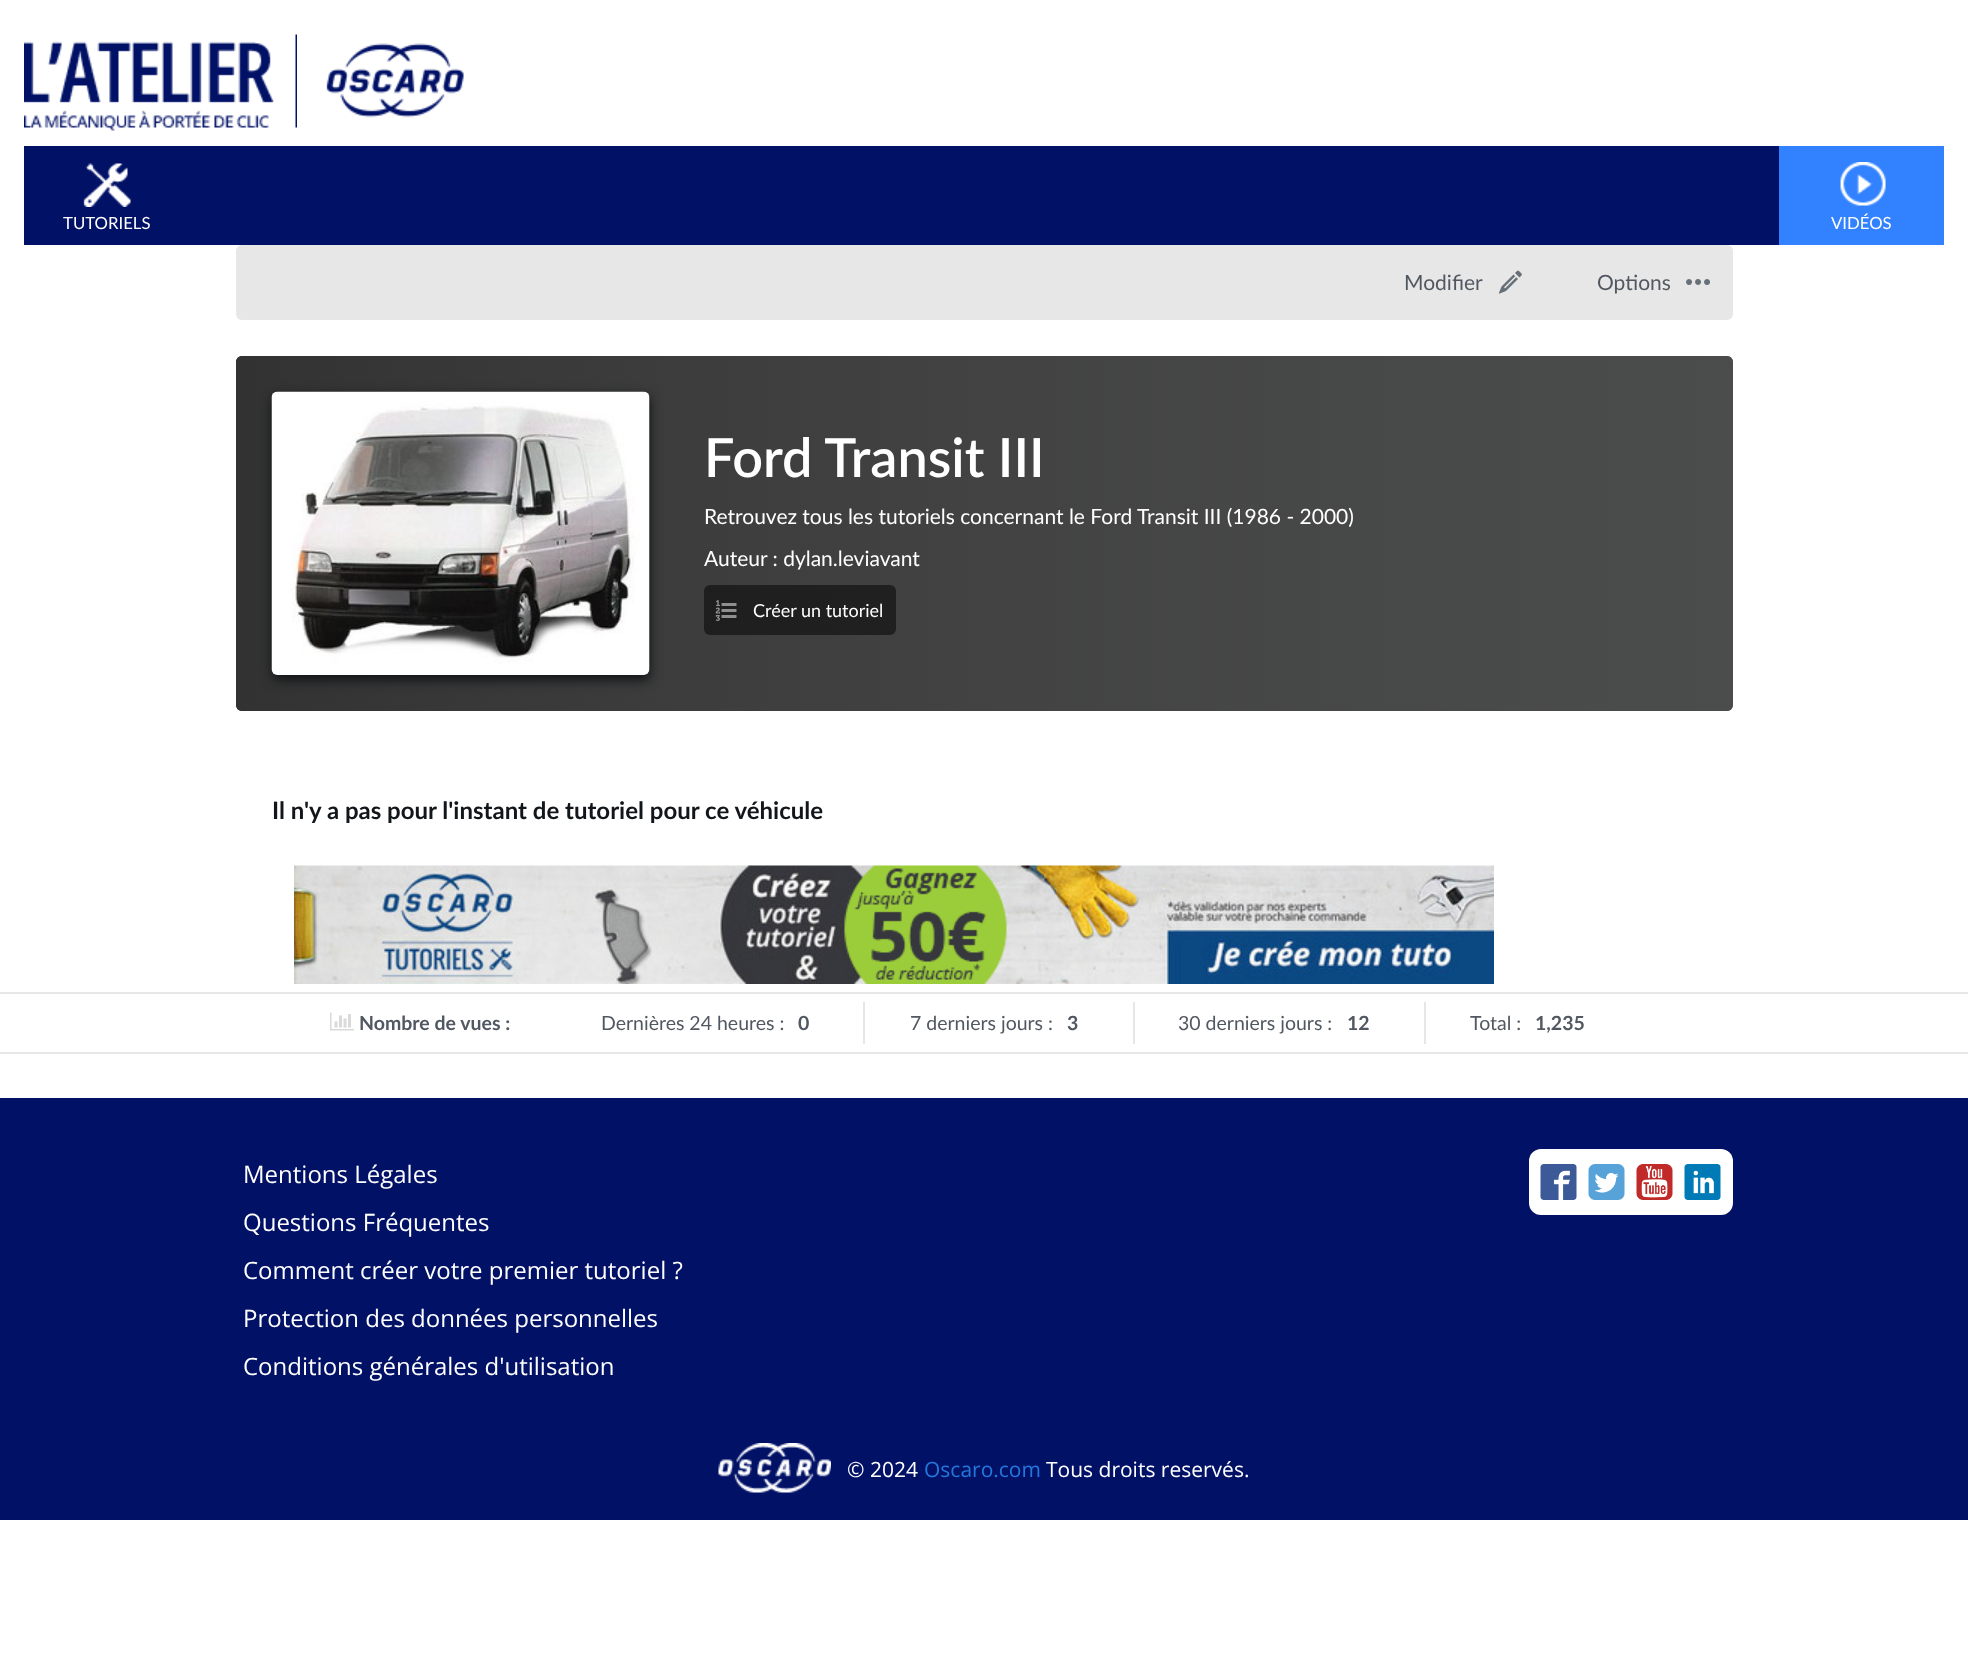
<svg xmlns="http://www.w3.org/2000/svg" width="1968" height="1662">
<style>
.a{font:16.75px Lato;fill:#fff}
.b{font:21px Lato;fill:#515861}
.c{font:600 54px Lato;fill:#fff}
.d{font:21px Lato;fill:#fff}
.e{font:18px Lato;fill:#fff}
.f{font:bold 24px Lato;fill:#11161a}
.g{font:bold 19.5px Lato;fill:#515861}
.h{font:19.5px Lato;fill:#515861}
.i{font:24px Open Sans;fill:#fff}
.j{font:21px Open Sans;fill:#fff}
.k{font:21px Open Sans;fill:#2477de}
</style>
<defs>
<linearGradient id="g1" gradientUnits="userSpaceOnUse" x1="236" y1="711" x2="1733" y2="711"><stop offset="0" stop-color="#323232"/><stop offset="1" stop-color="#646464" stop-opacity="0.7"/></linearGradient>
</defs>
<rect width="100%" height="100%" fill="#fff"/>
<image href="1.png" x="24" y="34" width="273" height="97"/>
<image href="2.png" x="326" y="43" width="138" height="75"/>
<path fill="#016" d="M24 146h1755v99H24z"/>
<image href="3.png" x="83" y="163" width="48" height="44"/>
<path fill="#3282ff" d="M1779 146h165v99H1779z"/>
<image href="4.png" x="1840" y="162" width="46" height="44"/>
<rect fill="#e7e7e7" x="236" y="245" width="1497" height="75" rx="6"/>
<image href="5.png" x="1499" y="270" width="23" height="24"/>
<image href="6.png" x="1686" y="279" width="24" height="6"/>
<rect fill="#101214" x="236" y="356" width="1497" height="355" rx="6"/>
<rect fill="url(#g1)" x="236" y="356" width="1497" height="355" rx="6"/>
<rect fill="#101214" filter="blur(6px)" x="272" y="396" width="378" height="284" rx="6"/>
<image href="7.png" x="271" y="391" width="379" height="284"/>
<rect fill="#00000080" x="704" y="585" width="192" height="50" rx="6"/>
<image href="8.png" x="715" y="600" width="22" height="21"/>
<image href="9.png" x="294" y="865" width="1200" height="119"/>
<path fill="#e7e7e7" d="M0 992h1968v2H0z"/>
<path fill="#e7e7e7" d="M0 1052h1968v2H0z"/>
<image href="10.png" x="330" y="1012" width="24" height="19"/>
<path fill="#e7e7e7" d="M863 1002h2v42H863z"/>
<path fill="#e7e7e7" d="M1133 1002h2v42H1133z"/>
<path fill="#e7e7e7" d="M1424 1002h2v42H1424z"/>
<path fill="#016" d="M0 1098h1968v422H0z"/>
<rect fill="#fff" x="1529" y="1149" width="204" height="66" rx="12"/>
<image href="11.png" x="1540" y="1164" width="37" height="36"/>
<image href="12.png" x="1588" y="1164" width="37" height="36"/>
<image href="13.png" x="1636" y="1164" width="37" height="36"/>
<image href="14.png" x="1684" y="1164" width="37" height="36"/>
<image href="15.png" x="718" y="1443" width="113" height="50"/>
<text class="a" x="63" y="229">TUTORIELS</text>
<text class="a" x="1831" y="229">VIDÉOS</text>
<text class="b" x="1404" y="290">Modifier</text>
<text class="b" x="1597" y="290">Options</text>
<text class="c" x="704" y="477">Ford Transit III</text>
<text class="d" x="704" y="524">Retrouvez tous les tutoriels concernant le Ford Transit III (1986 - 2000)</text>
<text class="d" x="704" y="566">Auteur : dylan.leviavant</text>
<text class="e" x="753" y="617">Créer un tutoriel</text>
<text class="f" x="272" y="819">Il n'y a pas pour l'instant de tutoriel pour ce véhicule</text>
<text class="g" x="359" y="1030">Nombre de vues :</text>
<text class="h" x="601" y="1030">Dernières 24 heures :</text>
<text class="g" x="798" y="1030">0</text>
<text class="h" x="910" y="1030">7 derniers jours :</text>
<text class="g" x="1067" y="1030">3</text>
<text class="h" x="1178" y="1030">30 derniers jours :</text>
<text class="g" x="1347" y="1030">12</text>
<text class="h" x="1470" y="1030">Total :</text>
<text class="g" x="1535" y="1030">1,235</text>
<text class="i" x="243" y="1183">Mentions Légales</text>
<text class="i" x="243" y="1231">Questions Fréquentes</text>
<text class="i" x="243" y="1279">Comment créer votre premier tutoriel ?</text>
<text class="i" x="243" y="1327">Protection des données personnelles</text>
<text class="i" x="243" y="1375">Conditions générales d'utilisation</text>
<text class="j" x="847" y="1477">© 2024</text>
<text class="k" x="924" y="1477">Oscaro.com</text>
<text class="j" x="1046" y="1477">Tous droits reservés.</text>
</svg>
